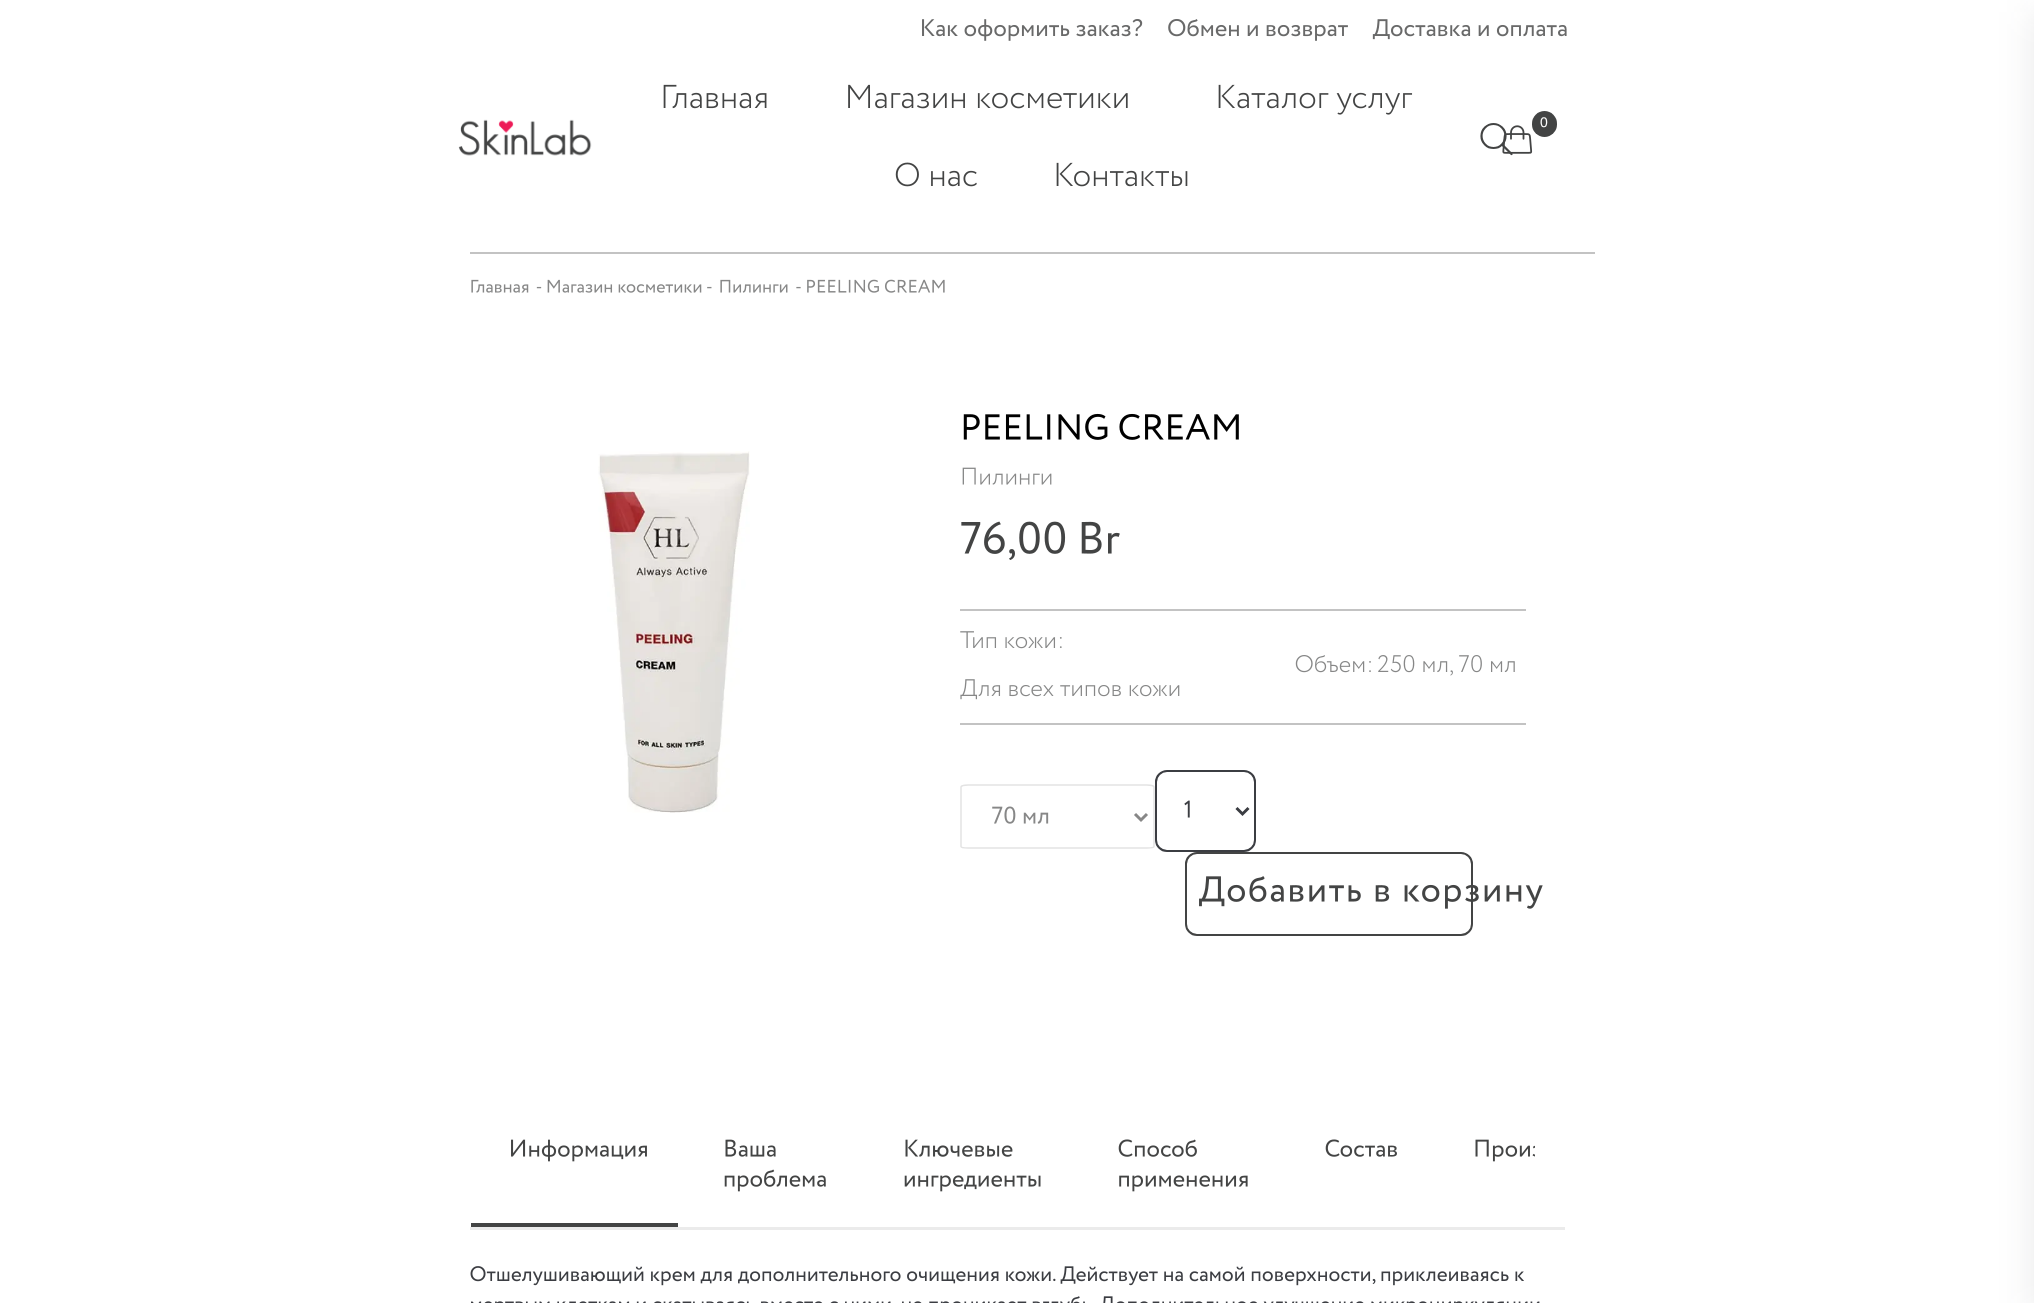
<svg xmlns="http://www.w3.org/2000/svg" width="2034" height="1303">
<style>
.a{font:14px Liberation Sans;fill:#fff}
</style>
<rect width="100%" height="100%" fill="#fff"/>
<image href="1.png" x="922" y="19" width="221" height="22"/>
<image href="2.png" x="1168" y="19" width="180" height="22"/>
<image href="3.png" x="1372" y="19" width="195" height="21"/>
<image href="4.png" x="458" y="119" width="134" height="37"/>
<image href="5.png" x="663" y="84" width="104" height="25"/>
<image href="6.png" x="848" y="84" width="280" height="25"/>
<image href="7.png" x="1218" y="84" width="195" height="31"/>
<image href="8.png" x="895" y="162" width="82" height="25"/>
<image href="9.png" x="1056" y="162" width="132" height="25"/>
<circle fill="none" stroke="#434444" stroke-width="2.2" cx="1493.5" cy="136" r="12"/>
<path fill="none" stroke="#434444" stroke-width="2.2" stroke-linecap="round" d="M1511.5 154l-8.5-8.5"/>
<rect fill="#434444" x="1532" y="111" width="25" height="26" rx="12.5"/>
<image href="10.png" x="1502" y="125" width="31" height="29"/>
<path fill="#292b2e1a" filter="blur(18px)" d="M2034 12h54v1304H2034z"/>
<path fill="#c3c3c3" d="M470 252h1125v2H470z"/>
<image href="11.png" x="471" y="279" width="58" height="14"/>
<image href="12.png" x="536" y="279" width="176" height="14"/>
<image href="13.png" x="720" y="279" width="68" height="14"/>
<image href="14.png" x="796" y="279" width="149" height="14"/>
<image href="15.png" x="598" y="451" width="152" height="362"/>
<image href="16.png" x="963" y="413" width="276" height="27"/>
<image href="17.png" x="962" y="467" width="90" height="18"/>
<image href="18.png" x="961" y="521" width="105" height="39"/>
<image href="19.png" x="1081" y="521" width="39" height="33"/>
<path fill="#c3c3c3" d="M960 609h566v2H960z"/>
<path fill="#c3c3c3" d="M960 723h566v2H960z"/>
<image href="20.png" x="960" y="631" width="102" height="18"/>
<image href="21.png" x="960" y="679" width="220" height="21"/>
<image href="22.png" x="1295" y="655" width="76" height="18"/>
<image href="23.png" x="1378" y="655" width="137" height="21"/>
<path fill="none" stroke="#e3e3e3" stroke-width="1.5" d="M968 785h179c4 0 7 1 7 2v59.5c0 1-3 1.5-7 1.5h-179c-4 0-7-.5-7-1.5v-59.5c0-1 3-2 7-2z"/>
<path fill="none" stroke="#878787" stroke-width="3" d="M1135 814l6 6l6-6"/>
<image href="24.png" x="992" y="806" width="57" height="18"/>
<rect fill="none" stroke="#3b3d42" stroke-width="2" x="1156" y="771" width="99" height="80" rx="11"/>
<path fill="none" stroke="#3b3d42" stroke-width="3" d="M1236.5 808l6 6l6-6"/>
<image href="25.png" x="1184" y="800" width="6" height="18"/>
<rect fill="none" stroke="#434444" stroke-width="2" x="1186" y="853" width="286" height="82" rx="11"/>
<image href="26.png" x="1199" y="876" width="344" height="33"/>
<path fill="#434444" d="M471 1223h207v4H471z"/>
<image href="27.png" x="511" y="1139" width="136" height="23"/>
<image href="28.png" x="725" y="1139" width="51" height="18"/>
<image href="29.png" x="724" y="1169" width="102" height="23"/>
<image href="30.png" x="905" y="1139" width="108" height="18"/>
<image href="31.png" x="904" y="1175" width="137" height="17"/>
<image href="32.png" x="1118" y="1139" width="79" height="18"/>
<image href="33.png" x="1119" y="1175" width="129" height="17"/>
<image href="34.png" x="1325" y="1139" width="72" height="18"/>
<image href="35.png" x="1475" y="1139" width="60" height="23"/>
<path fill="#ebebeb" d="M470 1227h1095v3H470z"/>
<image href="36.png" x="470" y="1266" width="1054" height="20"/>
<image href="37.png" x="471" y="1296" width="1069" height="7"/>
<text class="a" x="1540" y="127">0</text>
</svg>
